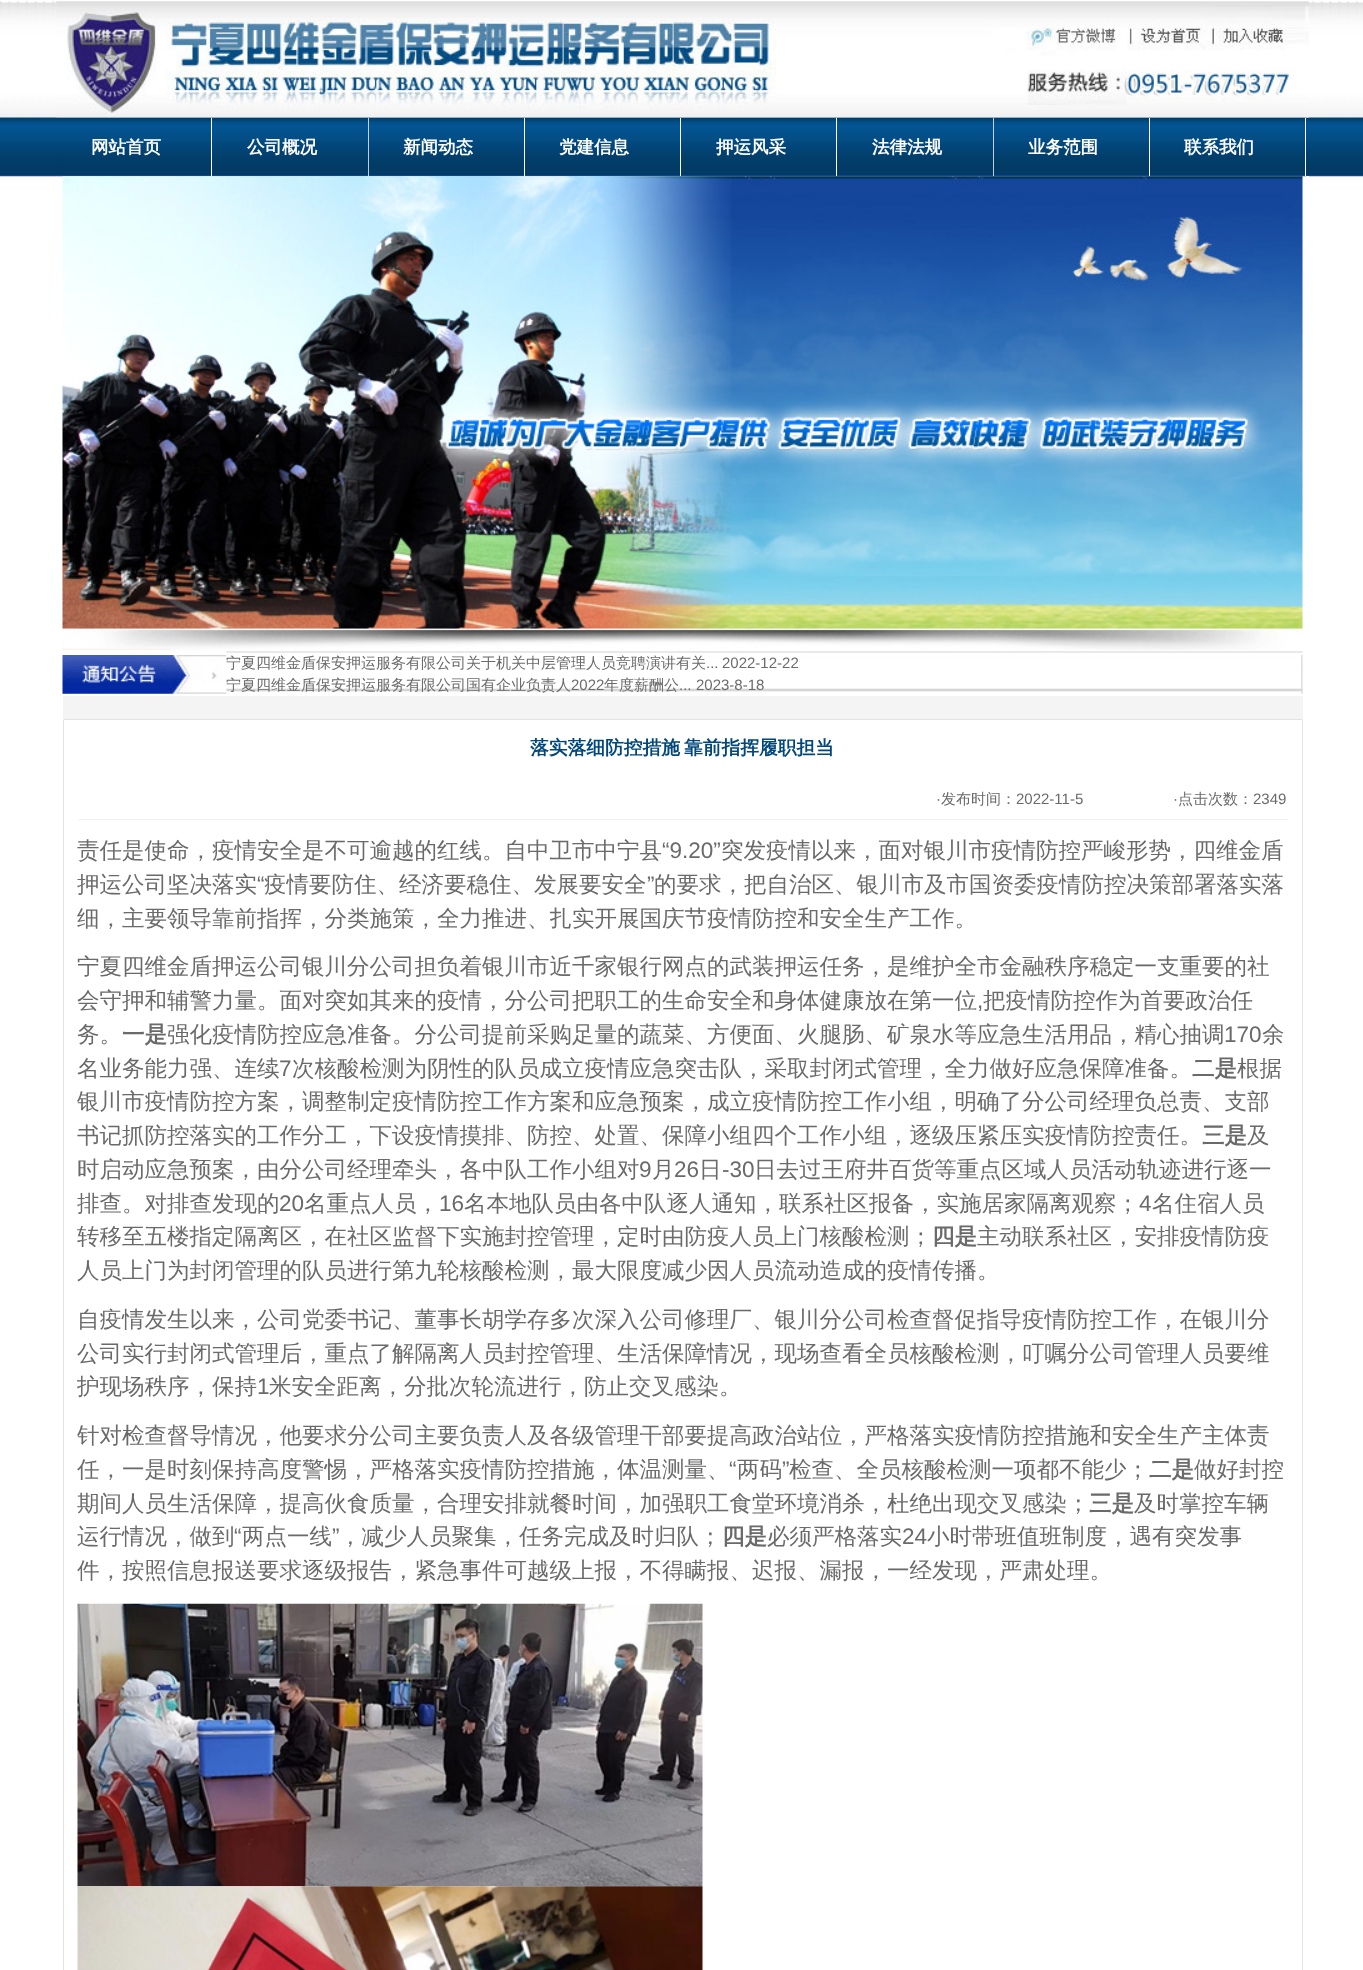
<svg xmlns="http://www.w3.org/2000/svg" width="1363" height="1970">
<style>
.a{font:bold 17.5px WenQuanYi Zen Hei;fill:#fff}
.b{font:500 15px WenQuanYi Zen Hei;fill:#6a6a6a}
.c{font:15px Liberation Sans;fill:#6a6a6a}
.d{font:bold 18.75px WenQuanYi Zen Hei;fill:#01477b}
.e{font:500 22.5px WenQuanYi Zen Hei;fill:#6a6a6a}
.f{font:22.5px Liberation Sans;fill:#6a6a6a}
.g{font:bold 22.5px WenQuanYi Zen Hei;fill:#6a6a6a}
</style>
<rect width="100%" height="100%" fill="#fff"/>
<image href="1.png" x="0" y="1" width="1363" height="117"/>
<image href="3.png" x="0" y="117" width="1363" height="60"/>
<path fill="#fff" d="M56 176h1253v1H56z"/>
<image href="4.png" x="56" y="117" width="157" height="60"/>
<image href="5.png" x="212" y="117" width="157" height="60"/>
<path fill="#fff" d="M368 118h1v58H368z"/>
<image href="6.png" x="368" y="117" width="157" height="60"/>
<image href="7.png" x="525" y="117" width="157" height="60"/>
<image href="8.png" x="681" y="117" width="157" height="60"/>
<image href="5.png" x="837" y="117" width="157" height="60"/>
<path fill="#fff" d="M993 118h1v58H993z"/>
<image href="6.png" x="993" y="117" width="157" height="60"/>
<image href="7.png" x="1150" y="117" width="157" height="60"/>
<image href="2.png" x="56" y="1" width="1253" height="117"/>
<path fill="#fff" d="M211 118h1v58H211z"/>
<path fill="#fff" d="M524 118h1v58H524z"/>
<path fill="#fff" d="M680 118h1v58H680z"/>
<path fill="#fff" d="M836 118h1v58H836z"/>
<path fill="#fff" d="M1149 118h1v58H1149z"/>
<path fill="#fff" d="M1305 118h1v58H1305z"/>
<image href="9.png" x="62" y="176" width="1241" height="453"/>
<image href="12.png" x="226" y="651" width="1076" height="41"/>
<image href="13.png" x="1301" y="651" width="2" height="41"/>
<image href="10.png" x="62" y="628" width="1241" height="24"/>
<image href="14.png" x="1301" y="655" width="2" height="39"/>
<path fill="#f4f4f4" d="M63 696h1240v23H63z"/>
<path fill="none" stroke="#e3e3e3" d="M63.5 719.5h1239v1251H63.5z"/>
<path fill="#f2f2f2" d="M78 819h1210v1H78z"/>
<image href="15.png" x="77" y="1603" width="626" height="284"/>
<image href="16.png" x="77" y="1886" width="626" height="84"/>
<text class="a" x="91" y="153">网站首页</text>
<text class="a" x="247" y="153">公司概况</text>
<text class="a" x="403" y="153">新闻动态</text>
<text class="a" x="559" y="153">党建信息</text>
<text class="a" x="716" y="153">押运风采</text>
<text class="a" x="872" y="153">法律法规</text>
<text class="a" x="1028" y="153">业务范围</text>
<text class="a" x="1184" y="153">联系我们</text>
<text class="b" x="226" y="668">宁夏四维金盾保安押运服务有限公司关于机关中层管理人员竞聘演讲有关</text>
<text class="c" x="706" y="668">...</text>
<text class="c" x="722" y="668">2022-12-22</text>
<text class="b" x="226" y="690">宁夏四维金盾保安押运服务有限公司国有企业负责人</text>
<image href="11.png" x="62" y="655" width="165" height="39"/>
<text class="c" x="571" y="690">2022</text>
<text class="b" x="604" y="690">年度薪酬公</text>
<text class="c" x="679" y="690">...</text>
<text class="c" x="696" y="690">2023-8-18</text>
<text class="d" x="530" y="754">落实落细防控措施</text>
<text class="d" x="684" y="754">靠前指挥履职担当</text>
<text class="c" x="936" y="804">·</text>
<text class="b" x="941" y="804">发布时间：</text>
<text class="c" x="1016" y="804">2022-11-5</text>
<text class="c" x="1173" y="804">·</text>
<text class="b" x="1178" y="804">点击次数：</text>
<text class="c" x="1253" y="804">2349</text>
<text class="e" x="77" y="858">责任是使命，疫情安全是不可逾越的红线。自中卫市中宁县</text>
<text class="f" x="662" y="858">“9.20”</text>
<text class="e" x="721" y="858">突发疫情以来，面对银川市疫情防控严峻形势，四维金盾</text>
<text class="e" x="77" y="892">押运公司坚决落实</text>
<text class="f" x="257" y="892">“</text>
<text class="e" x="264" y="892">疫情要防住、经济要稳住、发展要安全</text>
<text class="f" x="647" y="892">”</text>
<text class="e" x="654" y="892">的要求，把自治区、银川市及市国资委疫情防控决策部署落实落</text>
<text class="e" x="77" y="926">细，主要领导靠前指挥，分类施策，全力推进、扎实开展国庆节疫情防控和安全生产工作。</text>
<text class="e" x="77" y="974">宁夏四维金盾押运公司银川分公司担负着银川市近千家银行网点的武装押运任务，是维护全市金融秩序稳定一支重要的社</text>
<text class="e" x="77" y="1008">会守押和辅警力量。面对突如其来的疫情，分公司把职工的生命安全和身体健康放在第一位</text>
<text class="f" x="977" y="1008">,</text>
<text class="e" x="983" y="1008">把疫情防控作为首要政治任</text>
<text class="e" x="77" y="1042">务。</text>
<text class="g" x="122" y="1042">一是</text>
<text class="e" x="167" y="1042">强化疫情防控应急准备。分公司提前采购足量的蔬菜、方便面、火腿肠、矿泉水等应急生活用品，精心抽调</text>
<text class="f" x="1224" y="1042">170</text>
<text class="e" x="1262" y="1042">余</text>
<text class="e" x="77" y="1076">名业务能力强、连续</text>
<text class="f" x="279" y="1076">7</text>
<text class="e" x="292" y="1076">次核酸检测为阴性的队员成立疫情应急突击队，采取封闭式管理，全力做好应急保障准备。</text>
<text class="g" x="1192" y="1076">二是</text>
<text class="e" x="1237" y="1076">根据</text>
<text class="e" x="77" y="1109">银川市疫情防控方案，调整制定疫情防控工作方案和应急预案，成立疫情防控工作小组，明确了分公司经理负总责、支部</text>
<text class="e" x="77" y="1143">书记抓防控落实的工作分工，下设疫情摸排、防控、处置、保障小组四个工作小组，逐级压紧压实疫情防控责任。</text>
<text class="g" x="1202" y="1143">三是</text>
<text class="e" x="1247" y="1143">及</text>
<text class="e" x="77" y="1177">时启动应急预案，由分公司经理牵头，各中队工作小组对</text>
<text class="f" x="639" y="1177">9</text>
<text class="e" x="652" y="1177">月</text>
<text class="f" x="674" y="1177">26</text>
<text class="e" x="699" y="1177">日</text>
<text class="f" x="722" y="1177">-30</text>
<text class="e" x="754" y="1177">日去过王府井百货等重点区域人员活动轨迹进行逐一</text>
<text class="e" x="77" y="1211">排查。对排查发现的</text>
<text class="f" x="279" y="1211">20</text>
<text class="e" x="304" y="1211">名重点人员，</text>
<text class="f" x="439" y="1211">16</text>
<text class="e" x="464" y="1211">名本地队员由各中队逐人通知，联系社区报备，实施居家隔离观察；</text>
<text class="f" x="1139" y="1211">4</text>
<text class="e" x="1152" y="1211">名住宿人员</text>
<text class="e" x="77" y="1244">转移至五楼指定隔离区，在社区监督下实施封控管理，定时由防疫人员上门核酸检测；</text>
<text class="g" x="932" y="1244">四是</text>
<text class="e" x="977" y="1244">主动联系社区，安排疫情防疫</text>
<text class="e" x="77" y="1278">人员上门为封闭管理的队员进行第九轮核酸检测，最大限度减少因人员流动造成的疫情传播。</text>
<text class="e" x="77" y="1327">自疫情发生以来，公司党委书记、董事长胡学存多次深入公司修理厂、银川分公司检查督促指导疫情防控工作，在银川分</text>
<text class="e" x="77" y="1361">公司实行封闭式管理后，重点了解隔离人员封控管理、生活保障情况，现场查看全员核酸检测，叮嘱分公司管理人员要维</text>
<text class="e" x="77" y="1394">护现场秩序，保持</text>
<text class="f" x="257" y="1394">1</text>
<text class="e" x="269" y="1394">米安全距离，分批次轮流进行，防止交叉感染。</text>
<text class="e" x="77" y="1443">针对检查督导情况，他要求分公司主要负责人及各级管理干部要提高政治站位，严格落实疫情防控措施和安全生产主体责</text>
<text class="e" x="77" y="1477">任，一是时刻保持高度警惕，严格落实疫情防控措施，体温测量、</text>
<text class="f" x="729" y="1477">“</text>
<text class="e" x="737" y="1477">两码</text>
<text class="f" x="782" y="1477">”</text>
<text class="e" x="789" y="1477">检查、全员核酸检测一项都不能少；</text>
<text class="g" x="1149" y="1477">二是</text>
<text class="e" x="1194" y="1477">做好封控</text>
<text class="e" x="77" y="1511">期间人员生活保障，提高伙食质量，合理安排就餐时间，加强职工食堂环境消杀，杜绝出现交叉感染；</text>
<text class="g" x="1089" y="1511">三是</text>
<text class="e" x="1134" y="1511">及时掌控车辆</text>
<text class="e" x="77" y="1544">运行情况，做到</text>
<text class="f" x="234" y="1544">“</text>
<text class="e" x="242" y="1544">两点一线</text>
<text class="f" x="332" y="1544">”</text>
<text class="e" x="339" y="1544">，减少人员聚集，任务完成及时归队；</text>
<text class="g" x="722" y="1544">四是</text>
<text class="e" x="767" y="1544">必须严格落实</text>
<text class="f" x="902" y="1544">24</text>
<text class="e" x="927" y="1544">小时带班值班制度，遇有突发事</text>
<text class="e" x="77" y="1578">件，按照信息报送要求逐级报告，紧急事件可越级上报，不得瞒报、迟报、漏报，一经发现，严肃处理。</text>
</svg>
